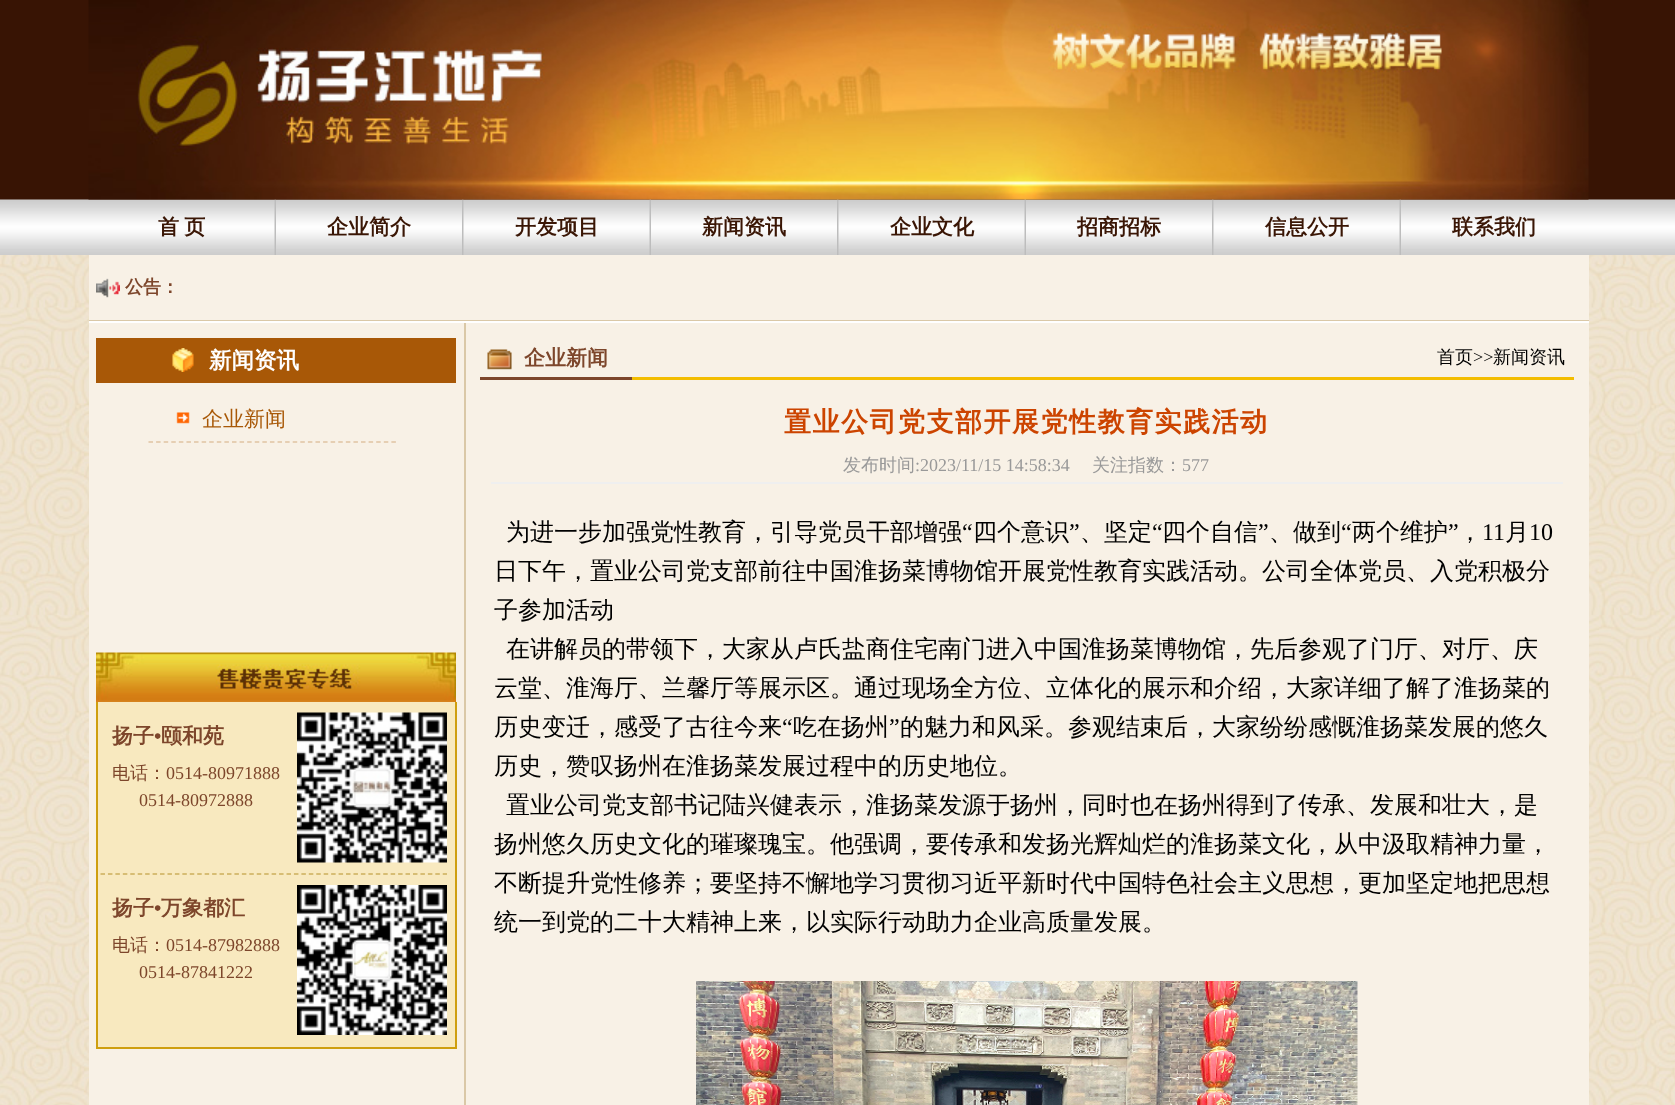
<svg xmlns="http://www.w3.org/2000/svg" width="1675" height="1105">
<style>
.a{font:bold 21px WenQuanYi Zen Hei;fill:#3a1605}
.b{font:bold 18px WenQuanYi Zen Hei;fill:#7d462b}
.c{font:bold 22.5px WenQuanYi Zen Hei;fill:#fff}
.d{font:500 21px WenQuanYi Zen Hei;fill:#a85807}
.e{font:bold 21px WenQuanYi Zen Hei;fill:#7d462b}
.f{font:bold 21px Liberation Serif;fill:#7d462b}
.g{font:500 18px WenQuanYi Zen Hei;fill:#7d462b}
.h{font:18px Liberation Serif;fill:#7d462b}
.i{font:500 18px WenQuanYi Zen Hei;fill:#000}
.j{font:18px Liberation Serif;fill:#000}
.k{font:bold 27px WenQuanYi Zen Hei;letter-spacing:1.5px;fill:#c40}
.l{font:500 18px WenQuanYi Zen Hei;fill:#999}
.m{font:18px Liberation Serif;fill:#999}
.n{font:500 24px WenQuanYi Zen Hei;fill:#000}
.o{font:24px Liberation Serif;fill:#000}
</style>
<rect width="100%" height="100%" fill="#fff"/>
<image href="1.png" x="0" y="255" width="1675" height="850"/>
<path fill="#381404" d="M0 0h1675v200H0z"/>
<image href="3.png" x="0" y="199" width="1675" height="56"/>
<image href="4.png" x="274" y="199" width="2" height="56"/>
<image href="5.png" x="462" y="199" width="2" height="56"/>
<image href="4.png" x="649" y="199" width="2" height="56"/>
<image href="5.png" x="837" y="199" width="2" height="56"/>
<image href="4.png" x="1024" y="199" width="2" height="56"/>
<image href="5.png" x="1212" y="199" width="2" height="56"/>
<image href="4.png" x="1399" y="199" width="2" height="56"/>
<image href="2.png" x="88" y="0" width="1501" height="200"/>
<path fill="#f8f1e6" d="M89 255h1500v850H89z"/>
<path fill="#dac8a7" d="M89 320h1500v1H89z"/>
<image href="6.png" x="96" y="278" width="24" height="20"/>
<path fill="#fff" d="M89 321h1500v2H89z"/>
<path fill="#a85807" d="M96 338h360v45H96z"/>
<image href="7.png" x="172" y="348" width="22" height="24"/>
<image href="8.png" x="176" y="412" width="14" height="12"/>
<path fill="none" stroke="#e0c3a3" stroke-width="1.5" stroke-dasharray="4.5 3.09" d="M148.5 442h247.5"/>
<image href="9.png" x="96" y="652" width="360" height="50"/>
<path fill="#f8e9bf" d="M98 702h357v345H98z"/>
<path fill="#cf9f0f" d="M455 702h2v347H455z"/>
<path fill="#cf9f0f" d="M96 1047h360v2H96z"/>
<path fill="#cf9f0f" d="M96 702h2v347H96z"/>
<image href="10.png" x="297" y="712" width="150" height="151"/>
<path fill="none" stroke="#ccaf5c" stroke-width="1.5" stroke-dasharray="4.5 2.94" d="M100.5 874h346.5"/>
<image href="11.png" x="297" y="885" width="150" height="150"/>
<path fill="#dac8a7" d="M464 323h2v782H464z"/>
<path fill="#f3bd00" d="M632 377h942v3H632z"/>
<image href="12.png" x="487" y="349" width="25" height="21"/>
<path fill="#7d462b" d="M480 377h152v3H480z"/>
<path fill="#efefef" d="M491 482h1072v2H491z"/>
<image href="13.png" x="696" y="981" width="662" height="124"/>
<text class="a" x="158" y="234" word-spacing="-1">首 页</text>
<text class="a" x="327" y="234">企业简介</text>
<text class="a" x="515" y="234">开发项目</text>
<text class="a" x="702" y="234">新闻资讯</text>
<text class="a" x="890" y="234">企业文化</text>
<text class="a" x="1077" y="234">招商招标</text>
<text class="a" x="1265" y="234">信息公开</text>
<text class="a" x="1452" y="234">联系我们</text>
<text class="b" x="125" y="293">公告：</text>
<text class="c" x="209" y="368">新闻资讯</text>
<text class="d" x="202" y="426">企业新闻</text>
<text class="e" x="112" y="743">扬子</text>
<text class="f" x="154" y="743">•</text>
<text class="e" x="161" y="743">颐和苑</text>
<text class="g" x="112" y="779">电话：</text>
<text class="h" x="166" y="779">0514-80971888</text>
<text class="h" x="139" y="806">0514-80972888</text>
<text class="e" x="112" y="915">扬子</text>
<text class="f" x="154" y="915">•</text>
<text class="e" x="161" y="915">万象都汇</text>
<text class="g" x="112" y="951">电话：</text>
<text class="h" x="166" y="951">0514-87982888</text>
<text class="h" x="139" y="978">0514-87841222</text>
<text class="e" x="524" y="365">企业新闻</text>
<text class="i" x="1437" y="363">首页</text>
<text class="j" x="1473" y="363">&gt;&gt;</text>
<text class="i" x="1493" y="363">新闻资讯</text>
<text class="k" x="784" y="431">置业公司党支部开展党性教育实践活动</text>
<text class="l" x="843" y="471">发布时间</text>
<text class="m" x="915" y="471">:2023/11/15 14:58:34</text>
<text class="l" x="1092" y="471">关注指数：</text>
<text class="m" x="1182" y="471">577</text>
<text class="n" x="506" y="540">为进一步加强党性教育，引导党员干部增强</text>
<text class="o" x="962" y="540">“</text>
<text class="n" x="973" y="540">四个意识</text>
<text class="o" x="1069" y="540">”</text>
<text class="n" x="1080" y="540">、坚定</text>
<text class="o" x="1152" y="540">“</text>
<text class="n" x="1162" y="540">四个自信</text>
<text class="o" x="1258" y="540">”</text>
<text class="n" x="1269" y="540">、做到</text>
<text class="o" x="1341" y="540">“</text>
<text class="n" x="1352" y="540">两个维护</text>
<text class="o" x="1448" y="540">”</text>
<text class="n" x="1458" y="540">，</text>
<text class="o" x="1482" y="540">11</text>
<text class="n" x="1505" y="540">月</text>
<text class="o" x="1529" y="540">10</text>
<text class="n" x="494" y="579">日下午，置业公司党支部前往中国淮扬菜博物馆开展党性教育实践活动。公司全体党员、入党积极分</text>
<text class="n" x="494" y="618">子参加活动</text>
<text class="n" x="506" y="657">在讲解员的带领下，大家从卢氏盐商住宅南门进入中国淮扬菜博物馆，先后参观了门厅、对厅、庆</text>
<text class="n" x="494" y="696">云堂、淮海厅、兰馨厅等展示区。通过现场全方位、立体化的展示和介绍，大家详细了解了淮扬菜的</text>
<text class="n" x="494" y="735">历史变迁，感受了古往今来</text>
<text class="o" x="782" y="735">“</text>
<text class="n" x="793" y="735">吃在扬州</text>
<text class="o" x="889" y="735">”</text>
<text class="n" x="900" y="735">的魅力和风采。参观结束后，大家纷纷感慨淮扬菜发展的悠久</text>
<text class="n" x="494" y="774">历史，赞叹扬州在淮扬菜发展过程中的历史地位。</text>
<text class="n" x="506" y="813">置业公司党支部书记陆兴健表示，淮扬菜发源于扬州，同时也在扬州得到了传承、发展和壮大，是</text>
<text class="n" x="494" y="852">扬州悠久历史文化的璀璨瑰宝。他强调，要传承和发扬光辉灿烂的淮扬菜文化，从中汲取精神力量，</text>
<text class="n" x="494" y="891">不断提升党性修养；要坚持不懈地学习贯彻习近平新时代中国特色社会主义思想，更加坚定地把思想</text>
<text class="n" x="494" y="930">统一到党的二十大精神上来，以实际行动助力企业高质量发展。</text>
</svg>
